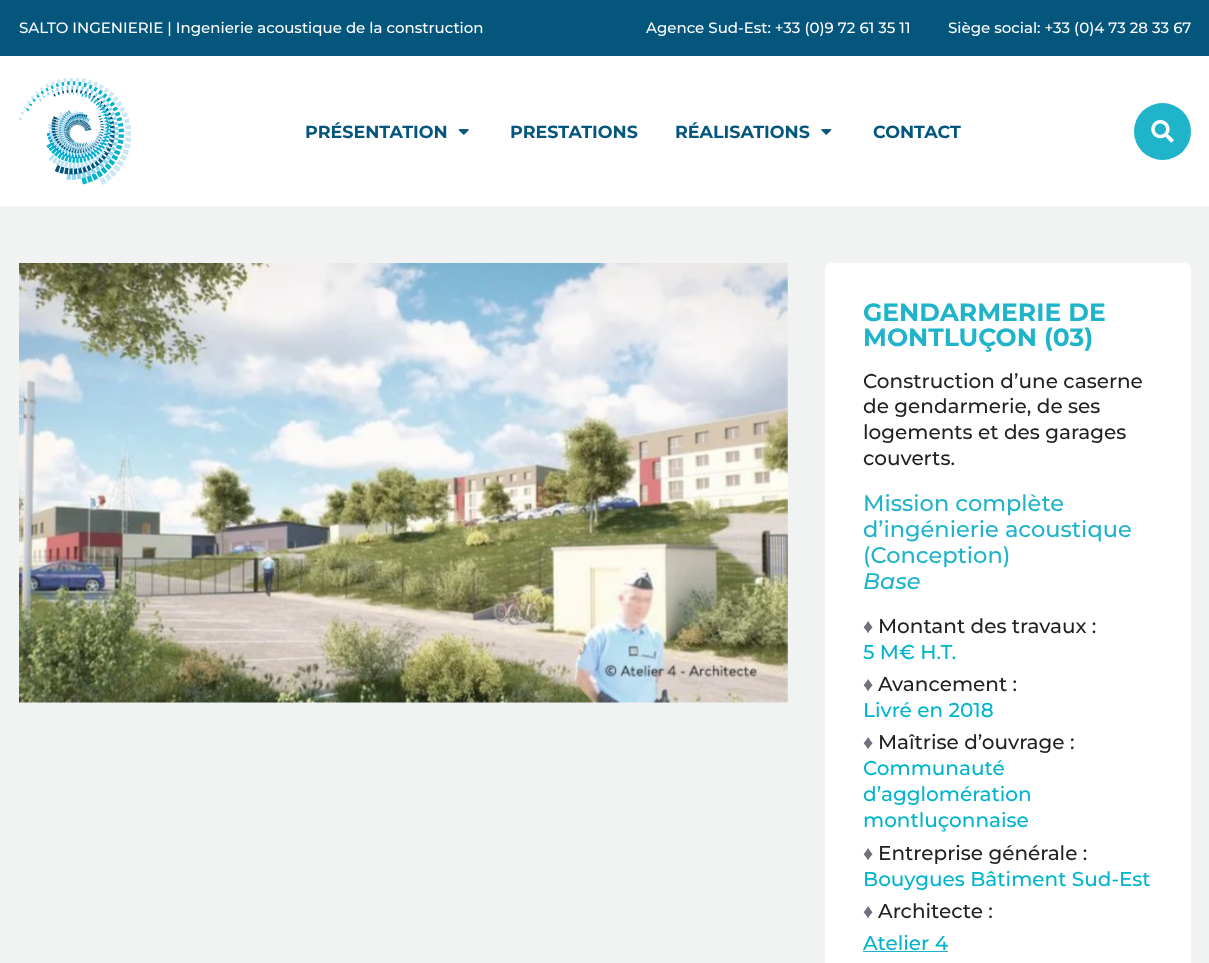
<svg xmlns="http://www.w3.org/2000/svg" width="1209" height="963">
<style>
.a{font:500 15px Montserrat;fill:#fff}
.b{font:bold 17.5px Montserrat;fill:#05567d}
.c{font:bold 25px Montserrat;fill:#1fb4c9}
.d{font:500 20px Montserrat;fill:#222}
.e{font:500 22.5px Montserrat;fill:#1fb4c9}
.f{font:italic 500 22.5px Montserrat;fill:#1fb4c9}
.g{font:20px Liberation Sans;fill:#70717d}
.h{font:500 20px Montserrat;fill:#00b4cc}
</style>
<rect width="100%" height="100%" fill="#f1f2f2"/>
<path fill="#fff" d="M0 56h1209v150H0z"/>
<path fill="#05567d" d="M0 0h1209v56H0z"/>
<image href="1.png" x="19" y="78" width="112" height="107"/>
<image href="2.png" x="458" y="129" width="11" height="6"/>
<image href="3.png" x="821" y="129" width="11" height="6"/>
<circle fill="#1fb4c9" cx="1162.5" cy="131.5" r="28.5"/>
<image href="4.png" x="1151" y="120" width="23" height="23"/>
<image href="5.png" x="19" y="263" width="769" height="440"/>
<rect fill="#fff" x="825" y="263" width="366" height="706" rx="6"/>
<path fill="#1fb4c9" d="M863 951h85v1H863z"/>
<text class="a" x="19" y="33">SALTO INGENIERIE | Ingenierie acoustique de la construction</text>
<text class="a" x="646" y="33">Agence Sud-Est: +33 (0)9 72 61 35 11</text>
<text class="a" x="948" y="33">Siège social: +33 (0)4 73 28 33 67</text>
<text class="b" x="305" y="138">PRÉSENTATION</text>
<text class="b" x="510" y="138">PRESTATIONS</text>
<text class="b" x="675" y="138">RÉALISATIONS</text>
<text class="b" x="873" y="138">CONTACT</text>
<text class="c" x="863" y="321">GENDARMERIE DE</text>
<text class="c" x="863" y="346">MONTLUÇON (03)</text>
<text class="d" x="863" y="388">Construction d’une caserne</text>
<text class="d" x="863" y="413">de gendarmerie, de ses</text>
<text class="d" x="863" y="439">logements et des garages</text>
<text class="d" x="863" y="465">couverts.</text>
<text class="e" x="863" y="511">Mission complète</text>
<text class="e" x="863" y="537">d’ingénierie acoustique</text>
<text class="e" x="863" y="563">(Conception)</text>
<text class="f" x="863" y="589">Base</text>
<text class="g" x="863" y="633">♦</text>
<text class="d" x="878" y="633">Montant des travaux :</text>
<text class="h" x="863" y="659">5 M€ H.T.</text>
<text class="g" x="863" y="691">♦</text>
<text class="d" x="878" y="691">Avancement :</text>
<text class="h" x="863" y="717">Livré en 2018</text>
<text class="g" x="863" y="749">♦</text>
<text class="d" x="878" y="749">Maîtrise d’ouvrage :</text>
<text class="h" x="863" y="775">Communauté</text>
<text class="h" x="863" y="801">d’agglomération</text>
<text class="h" x="863" y="827">montluçonnaise</text>
<text class="g" x="863" y="860">♦</text>
<text class="d" x="878" y="860">Entreprise générale :</text>
<text class="h" x="863" y="886">Bouygues Bâtiment Sud-Est</text>
<text class="g" x="863" y="918">♦</text>
<text class="d" x="878" y="918">Architecte :</text>
<text class="h" x="863" y="950">Atelier 4</text>
</svg>
